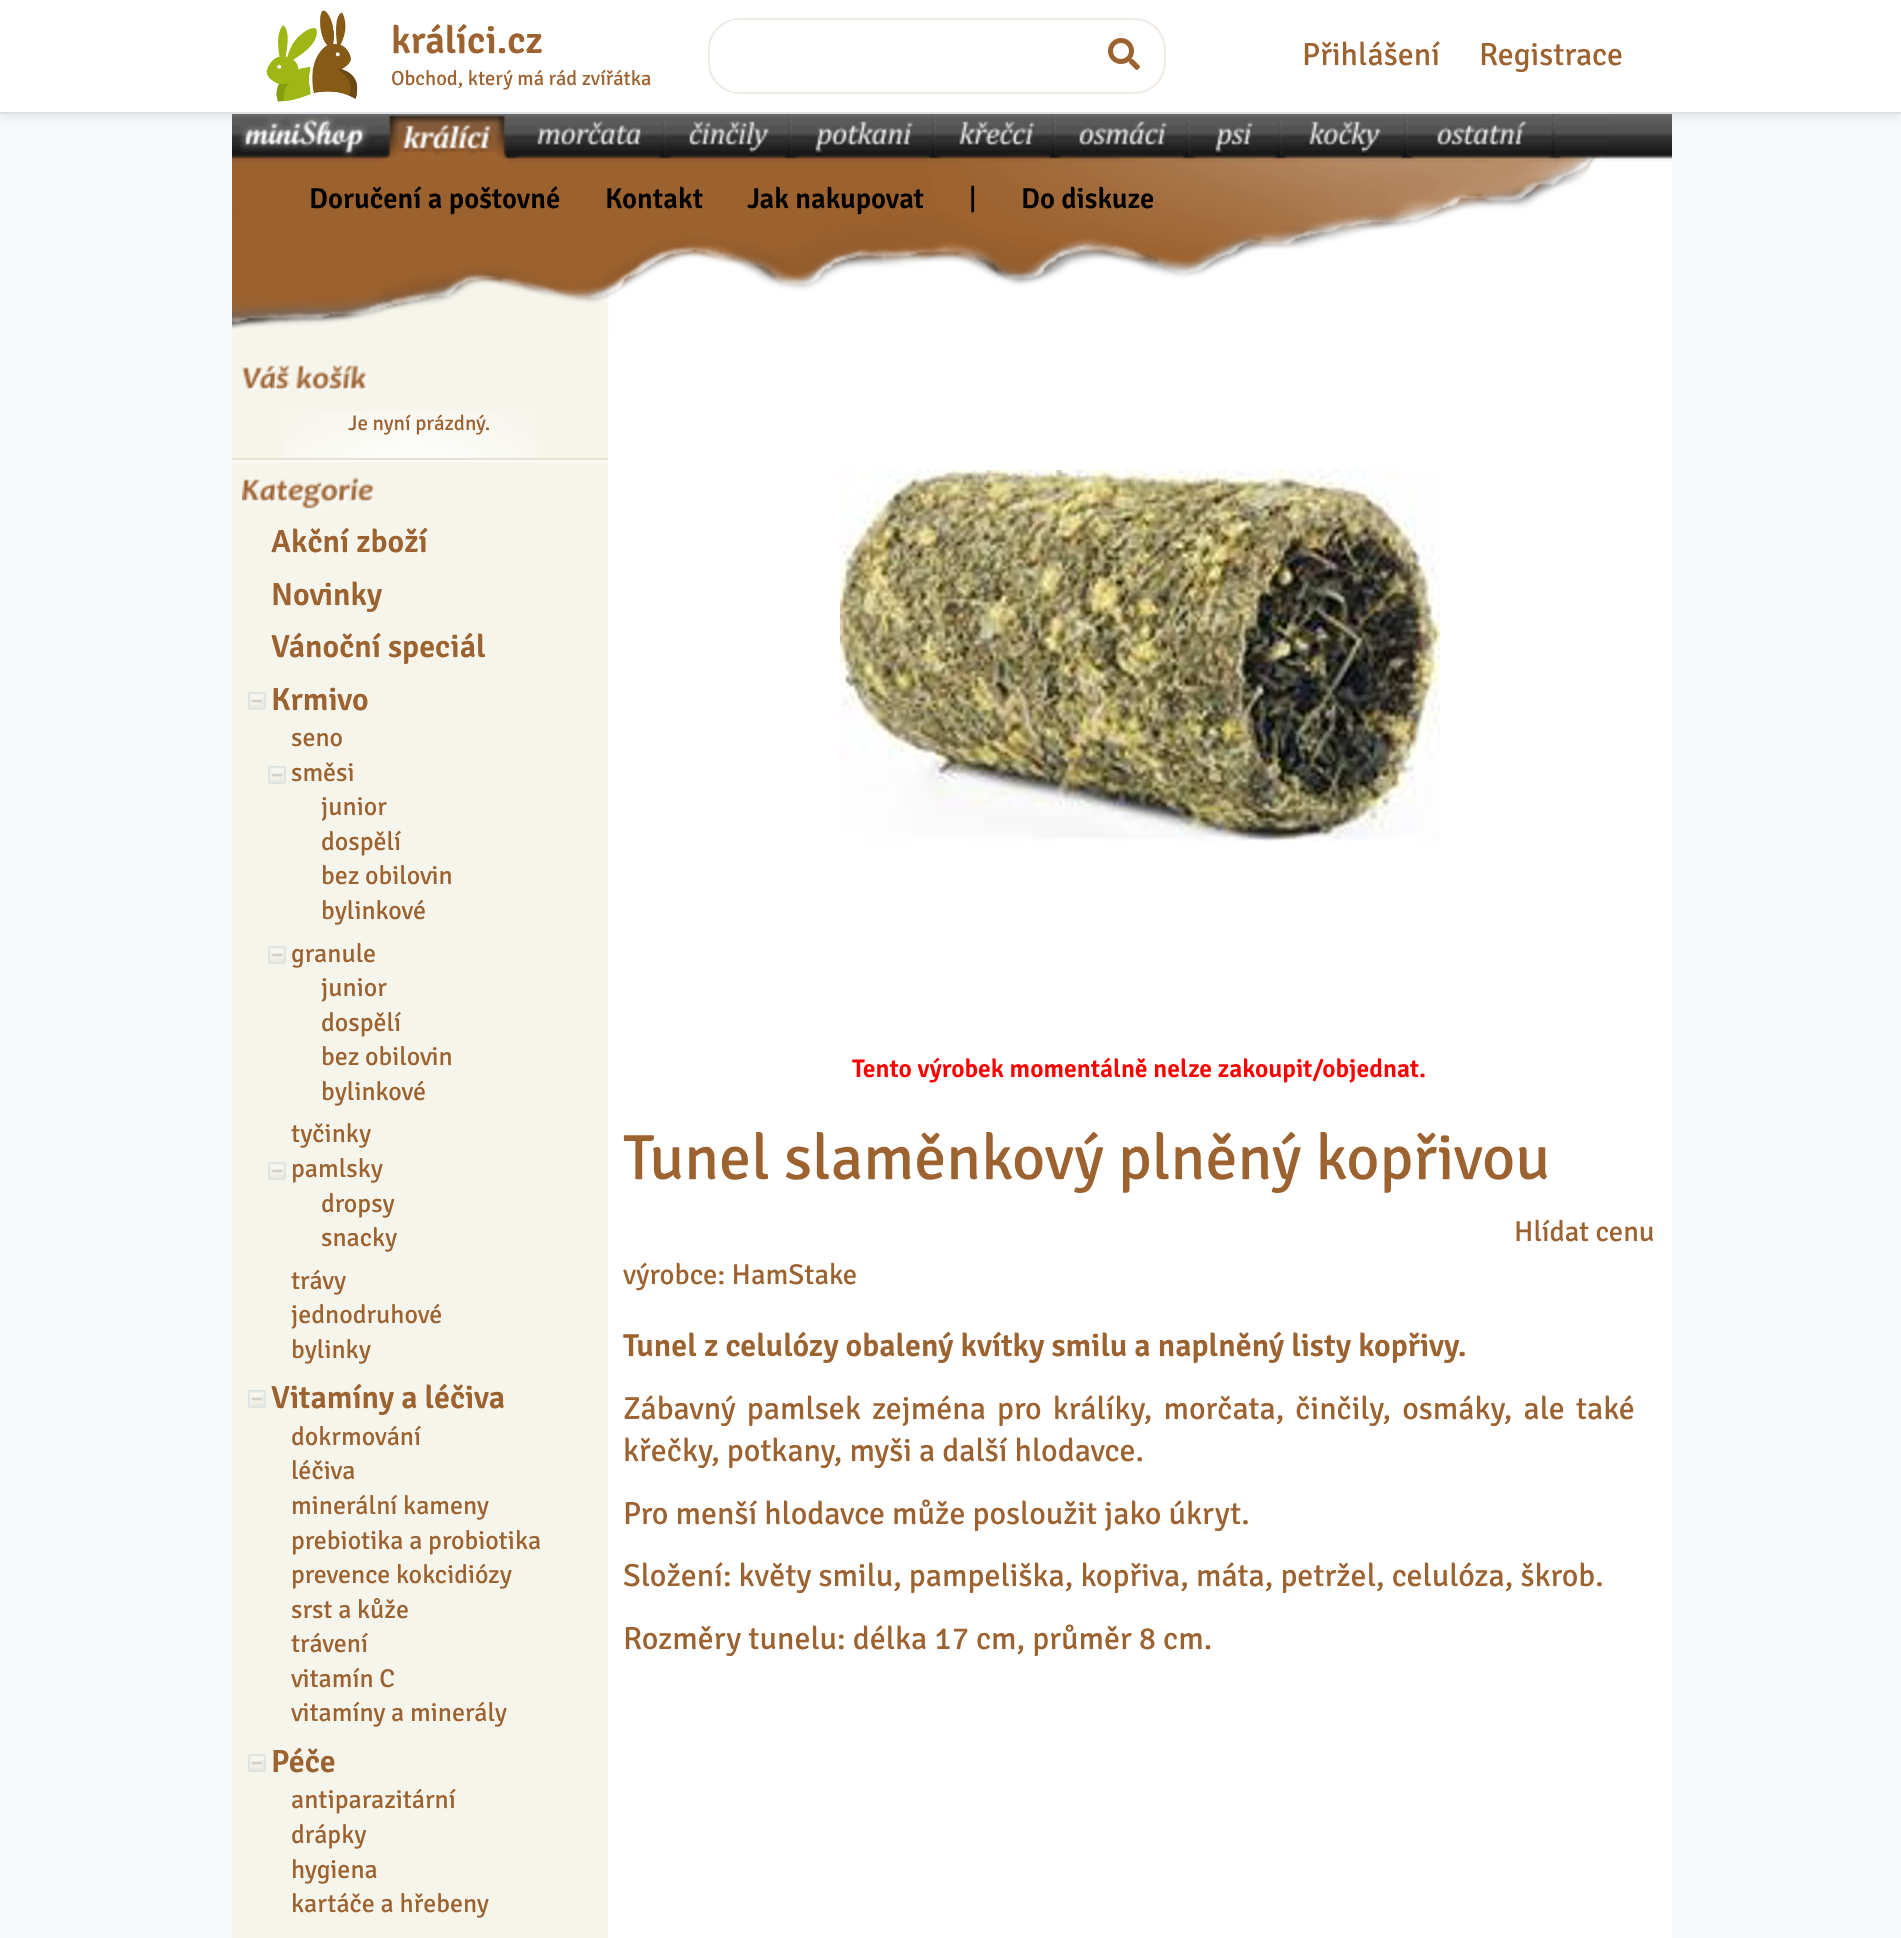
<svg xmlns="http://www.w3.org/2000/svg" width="1901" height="1938">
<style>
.a{font:600 38.5px Signika;fill:#9c6230}
.b{font:20.5px Signika;fill:#9c6230}
.c{font:32px Signika;fill:#9c6230}
.d{font:600 28.75px Signika;fill:#000}
.e{font:28.75px Signika;fill:#000}
.f{font:21px Signika;fill:#9c6230}
.g{font:600 32px Signika;fill:#9c6230}
.h{font:26px Signika;fill:#9c6230}
.i{font:600 25.6px Signika;fill:#f00}
.j{font:64px Signika;fill:#9c6230}
.k{font:28.75px Signika;fill:#9c6230}
</style>
<rect width="100%" height="100%" fill="#f8f9fa"/>
<path fill="#00000012" filter="blur(4px)" d="M0 4h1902v114H0z"/>
<path fill="#fff" d="M0 0h1901v112H0z"/>
<path fill="#dee2e6" d="M0 112h1901v2H0z"/>
<image href="1.png" x="266" y="10" width="92" height="92"/>
<path fill="#efe9e4" fill-rule="evenodd" d="M740 18h346v76h-346c-18 0-32-14-32-32v-12c0-18 14-32 32-32zm0 2h346v72h-346c-17 0-30-13-30-30v-12c0-17 13-30 30-30z"/>
<path fill="#efe9e4" fill-rule="evenodd" d="M1084 18h50c18 0 32 14 32 32v12c0 18-14 32-32 32h-50zm0 2h50c17 0 30 13 30 30v12c0 17-13 30-30 30h-50z"/>
<image href="2.png" x="1108" y="38" width="32" height="32"/>
<path fill="#fff" d="M609 162h1063v178H609z"/>
<image href="3.png" x="232" y="277" width="377" height="83"/>
<image href="4.png" x="1610" y="114" width="62" height="48"/>
<image href="5.png" x="232" y="114" width="1378" height="48"/>
<image href="6.png" x="232" y="162" width="1361" height="168"/>
<path fill="#f6f5ec" d="M232 360h376v98H232z"/>
<image href="7.png" x="285" y="411" width="252" height="47"/>
<image href="8.png" x="242" y="365" width="126" height="26"/>
<image href="9.png" x="232" y="458" width="376" height="4"/>
<path fill="#f6f5ec" d="M232 462h376v1476H232z"/>
<image href="10.png" x="242" y="477" width="132" height="34"/>
<image href="11.png" x="248" y="692" width="18" height="18"/>
<image href="11.png" x="268" y="766" width="18" height="18"/>
<image href="11.png" x="268" y="946" width="18" height="18"/>
<image href="11.png" x="268" y="1162" width="18" height="18"/>
<image href="11.png" x="248" y="1390" width="18" height="18"/>
<image href="11.png" x="248" y="1754" width="18" height="18"/>
<path fill="#fff" d="M608 340h1064v1598H608z"/>
<image href="12.png" x="840" y="468" width="600" height="375"/>
<text class="a" x="391" y="53">králíci.cz</text>
<text class="b" x="391" y="85">Obchod, který má rád zvířátka</text>
<text class="c" x="1302" y="65">Přihlášení</text>
<text class="c" x="1479" y="65">Registrace</text>
<text class="d" x="309" y="208">Doručení a poštovné</text>
<text class="d" x="605" y="208">Kontakt</text>
<text class="d" x="747" y="208">Jak nakupovat</text>
<text class="e" x="969" y="208">|</text>
<text class="d" x="1021" y="208">Do diskuze</text>
<text class="f" x="348" y="430">Je nyní prázdný.</text>
<text class="g" x="271" y="552">Akční zboží</text>
<text class="g" x="271" y="605">Novinky</text>
<text class="g" x="271" y="657">Vánoční speciál</text>
<text class="g" x="271" y="710">Krmivo</text>
<text class="h" x="291" y="746">seno</text>
<text class="h" x="291" y="781">směsi</text>
<text class="h" x="321" y="815">junior</text>
<text class="h" x="321" y="850">dospělí</text>
<text class="h" x="321" y="884">bez obilovin</text>
<text class="h" x="321" y="919">bylinkové</text>
<text class="h" x="291" y="962">granule</text>
<text class="h" x="321" y="996">junior</text>
<text class="h" x="321" y="1031">dospělí</text>
<text class="h" x="321" y="1065">bez obilovin</text>
<text class="h" x="321" y="1100">bylinkové</text>
<text class="h" x="291" y="1142">tyčinky</text>
<text class="h" x="291" y="1177">pamlsky</text>
<text class="h" x="321" y="1212">dropsy</text>
<text class="h" x="321" y="1246">snacky</text>
<text class="h" x="291" y="1289">trávy</text>
<text class="h" x="291" y="1323">jednodruhové</text>
<text class="h" x="291" y="1358">bylinky</text>
<text class="g" x="271" y="1408">Vitamíny a léčiva</text>
<text class="h" x="291" y="1445">dokrmování</text>
<text class="h" x="291" y="1479">léčiva</text>
<text class="h" x="291" y="1514">minerální kameny</text>
<text class="h" x="291" y="1549">prebiotika a probiotika</text>
<text class="h" x="291" y="1583">prevence kokcidiózy</text>
<text class="h" x="291" y="1618">srst a kůže</text>
<text class="h" x="291" y="1652">trávení</text>
<text class="h" x="291" y="1687">vitamín C</text>
<text class="h" x="291" y="1721">vitamíny a minerály</text>
<text class="g" x="271" y="1772">Péče</text>
<text class="h" x="291" y="1808">antiparazitární</text>
<text class="h" x="291" y="1843">drápky</text>
<text class="h" x="291" y="1878">hygiena</text>
<text class="h" x="291" y="1912">kartáče a hřebeny</text>
<text class="i" x="852" y="1077">Tento výrobek momentálně nelze zakoupit/objednat.</text>
<text class="j" x="623" y="1179">Tunel slaměnkový plněný kopřivou</text>
<text class="k" x="1514" y="1241">Hlídat cenu</text>
<text class="k" x="623" y="1284">výrobce: HamStake</text>
<text class="g" x="623" y="1356">Tunel z celulózy obalený kvítky smilu a naplněný listy kopřivy.</text>
<text class="c" x="623" y="1419" word-spacing="4">Zábavný pamlsek zejména pro králíky, morčata, činčily, osmáky, ale také</text>
<text class="c" x="623" y="1461">křečky, potkany, myši a další hlodavce.</text>
<text class="c" x="623" y="1524">Pro menší hlodavce může posloužit jako úkryt.</text>
<text class="c" x="623" y="1586">Složení: květy smilu, pampeliška, kopřiva, máta, petržel, celulóza, škrob.</text>
<text class="c" x="623" y="1649">Rozměry tunelu: délka 17 cm, průměr 8 cm.</text>
</svg>
